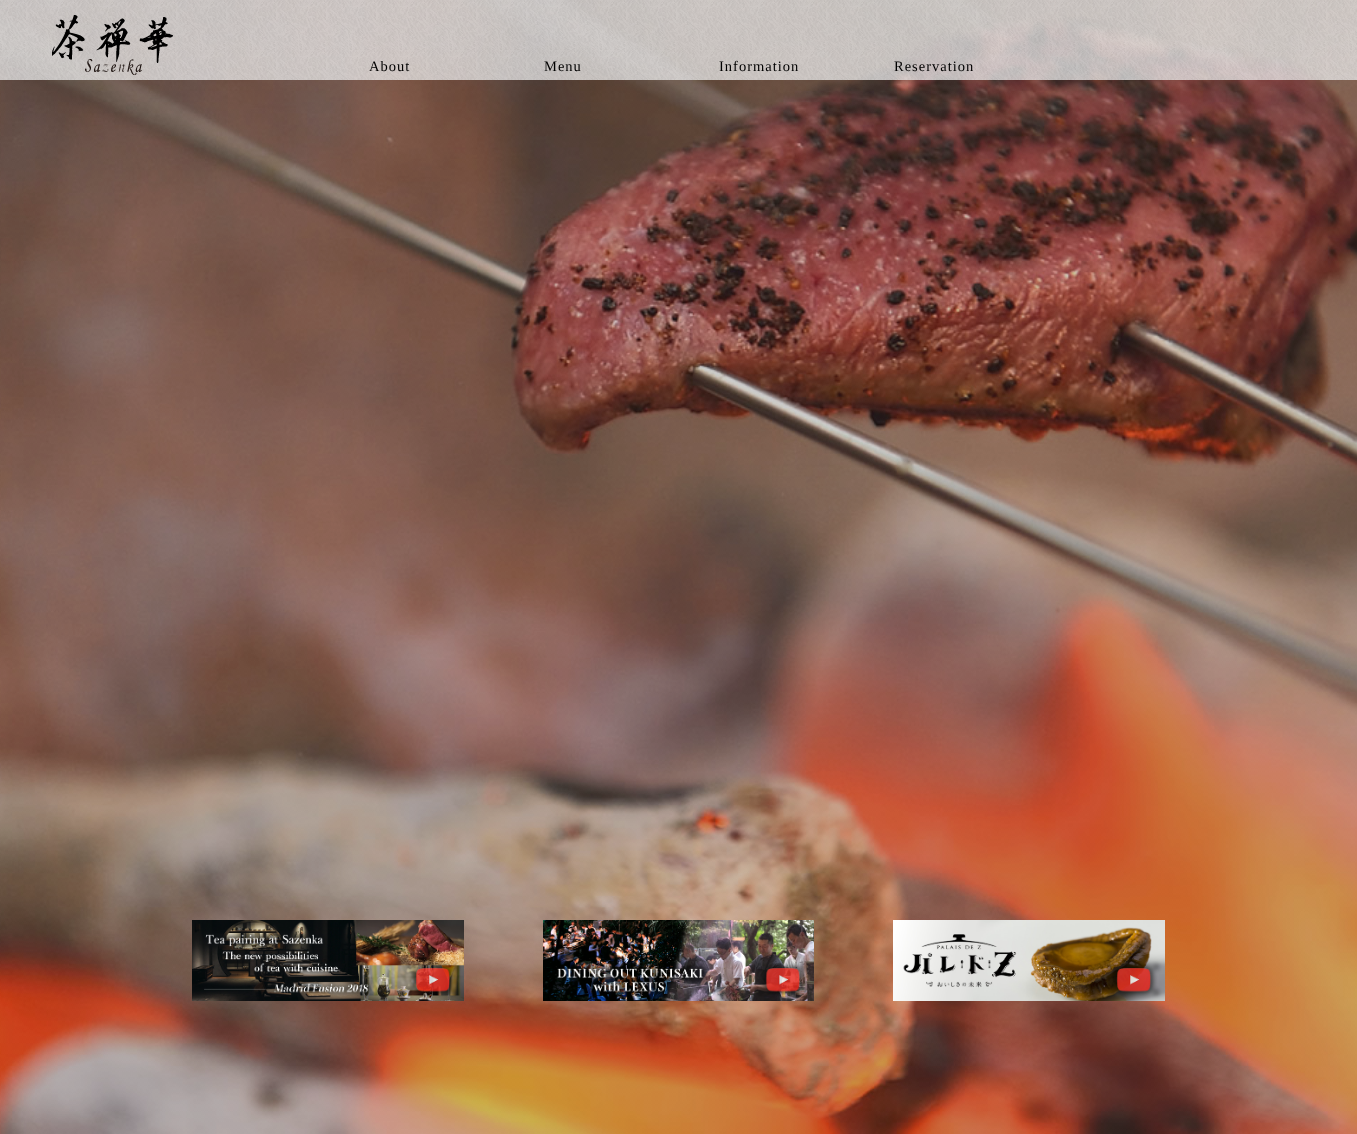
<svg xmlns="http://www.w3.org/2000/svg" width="1357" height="1134">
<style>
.a{font:14.5px Liberation Serif;letter-spacing:1px;fill:#000}
</style>
<rect width="100%" height="100%" fill="#fff"/>
<image href="1.png" x="0" y="0" width="1357" height="1134"/>
<image href="2.png" x="0" y="0" width="1357" height="1134"/>
<image href="3.png" x="192" y="920" width="272" height="81"/>
<image href="4.png" x="543" y="920" width="271" height="81"/>
<image href="5.png" x="893" y="920" width="272" height="81"/>
<image href="6.png" x="0" y="0" width="1357" height="80"/>
<image href="7.png" x="52" y="15" width="121" height="60"/>
<text class="a" x="369" y="71">About</text>
<text class="a" x="544" y="71">Menu</text>
<text class="a" x="719" y="71">Information</text>
<text class="a" x="894" y="71">Reservation</text>
</svg>
